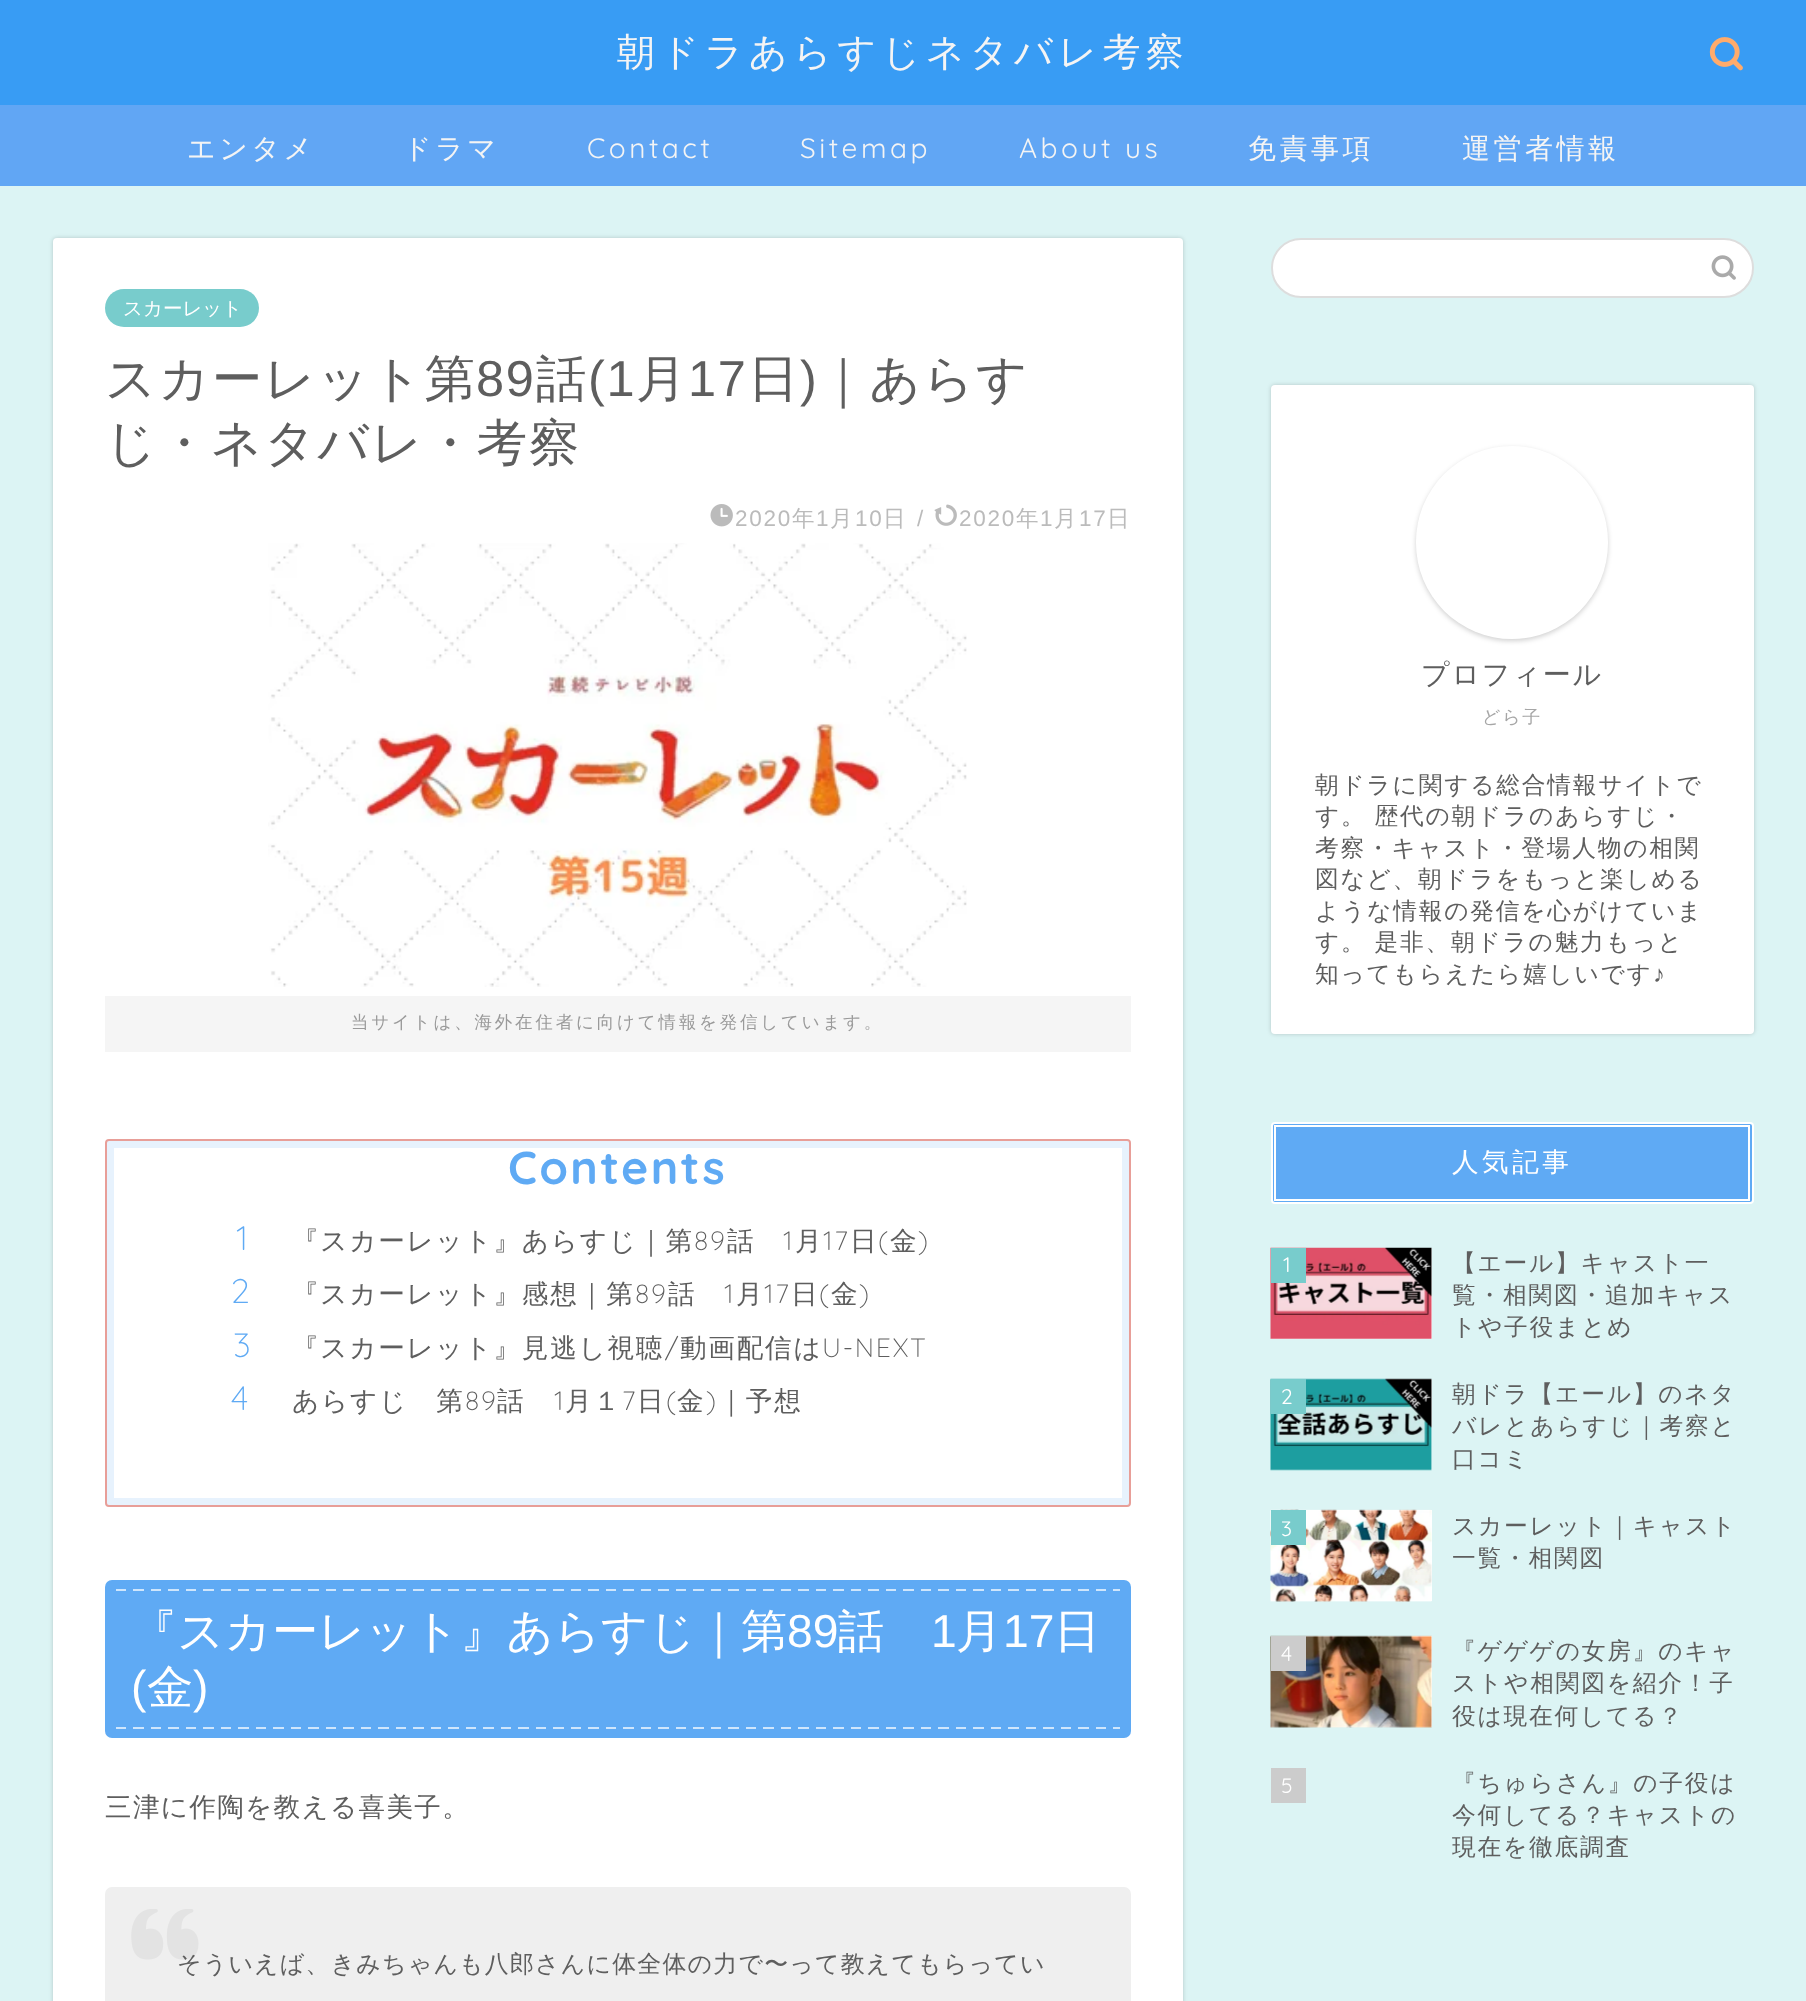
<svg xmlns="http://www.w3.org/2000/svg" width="1806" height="2001">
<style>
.a{font:500 38.1px WenQuanYi Zen Hei;letter-spacing:5.25px;fill:#f4f4f4}
.b{font:500 28px WenQuanYi Zen Hei;letter-spacing:3.5px;fill:#f4f4f4}
.c{font:28px Quicksand;letter-spacing:3.5px;fill:#f4f4f4}
.d{font:500 19.5px WenQuanYi Zen Hei;fill:#fff}
.e{font:500 50.5px WenQuanYi Zen Hei;letter-spacing:1.75px;fill:#5e5e5e}
.f{font:50.5px Liberation Sans;letter-spacing:1.75px;fill:#5e5e5e}
.g{font:22.5px Liberation Sans;letter-spacing:1.75px;fill:#bbb}
.h{font:500 22.5px WenQuanYi Zen Hei;letter-spacing:1.75px;fill:#bbb}
.i{font:500 17.5px WenQuanYi Zen Hei;letter-spacing:2.8px;fill:#9a9a9a}
.j{font:bold 46.25px Quicksand;letter-spacing:2.25px;fill:#5faaf4}
.k{font:300 34px Quicksand;letter-spacing:-2px;fill:#5faaf4}
.l{font:500 26.6px WenQuanYi Zen Hei;letter-spacing:1.75px;fill:#5e5e5e}
.m{font:300 26.6px Quicksand;letter-spacing:1.75px;fill:#5e5e5e}
.n{font:500 46.25px WenQuanYi Zen Hei;fill:#fff}
.o{font:46.25px Liberation Sans;fill:#fff}
.p{font:500 26.6px WenQuanYi Zen Hei;letter-spacing:1.3px;fill:#5e5e5e}
.q{font:500 23.95px WenQuanYi Zen Hei;letter-spacing:1.2px;fill:#5e5e5e}
.r{font:500 28px WenQuanYi Zen Hei;letter-spacing:1.75px;fill:#5e5e5e}
.s{font:500 18px WenQuanYi Zen Hei;letter-spacing:1.75px;fill:#a6a6a6}
.t{font:500 23.75px WenQuanYi Zen Hei;letter-spacing:1.75px;fill:#5e5e5e}
.u{font:23.75px Liberation Sans;letter-spacing:1.75px;fill:#5e5e5e}
.v{font:500 26.6px WenQuanYi Zen Hei;letter-spacing:3.5px;fill:#fff}
.w{font:21px Quicksand;letter-spacing:3.5px;fill:#fff}
</style>
<rect width="100%" height="100%" fill="#dcf4f4"/>
<path fill="#389cf4" d="M0 0h1806v105H0z"/>
<image href="1.png" x="1709" y="37" width="34" height="34"/>
<path fill="#61a6f4" d="M0 105h1806v81H0z"/>
<rect fill="#0000002e" filter="blur(2px)" x="53" y="238" width="1130" height="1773" rx="4"/>
<rect fill="#fff" x="53" y="238" width="1130" height="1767" rx="4"/>
<rect fill="#78cccc" x="105" y="289" width="154" height="38" rx="19"/>
<image href="2.png" x="710" y="504" width="23" height="23"/>
<image href="3.png" x="934" y="504" width="23" height="22"/>
<image href="4.png" x="268" y="543" width="699" height="444"/>
<path fill="#f5f5f5" d="M105 996h1026v56H105z"/>
<rect fill="none" stroke="#e89e98" stroke-width="2" x="106" y="1140" width="1024" height="366" rx="3"/>
<path fill="#5faaf426" fill-rule="evenodd" d="M109 1141c-1 0-2 1-2 2v360c0 1 1 2 2 2h1018c1 0 2-1 2-2v-360c0-1-1-2-2-2zm5 7v350h1008v-350z"/>
<rect fill="#5faaf4" x="105" y="1580" width="1026" height="158" rx="7"/>
<image href="5.png" x="116" y="1589" width="1004" height="2"/>
<image href="5.png" x="116" y="1727" width="1004" height="2"/>
<rect fill="#efefef" x="105" y="1887" width="1026" height="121" rx="7"/>
<rect fill="#fff" stroke="#ddd" stroke-width="2" x="1272" y="239" width="481" height="58" rx="29"/>
<image href="7.png" x="1711" y="255" width="25" height="25"/>
<rect fill="#0000002e" filter="blur(2px)" x="1271" y="385" width="483" height="649" rx="4"/>
<rect fill="#fff" x="1271" y="385" width="483" height="649" rx="4"/>
<rect fill="#0000002e" filter="blur(2.5px)" x="1416" y="448" width="192" height="193" rx="96"/>
<rect fill="#fff" x="1416" y="446" width="192" height="193" rx="96"/>
<rect fill="#5faaf4" stroke="#fff" stroke-width="2" x="1272" y="1123" width="481" height="80" rx="3"/>
<path fill="none" stroke="#fff" stroke-width="2" d="M1275 1126h474v74H1275z"/>
<path fill="#fff" d="M1271 1248h161v91H1271z"/>
<image href="8.png" x="1270" y="1247" width="162" height="92"/>
<path fill="#78cccc" d="M1271 1248h35v35H1271z"/>
<path fill="#fff" d="M1271 1379h161v91H1271z"/>
<image href="9.png" x="1270" y="1378" width="162" height="93"/>
<path fill="#78cccc" d="M1271 1379h35v35H1271z"/>
<path fill="#fff" d="M1271 1510h161v91H1271z"/>
<image href="10.png" x="1270" y="1509" width="162" height="93"/>
<path fill="#78cccc" d="M1271 1510h35v35H1271z"/>
<path fill="#fff" d="M1271 1636h161v91H1271z"/>
<image href="11.png" x="1270" y="1635" width="162" height="93"/>
<path fill="#ccc" d="M1271 1636h35v35H1271z"/>
<path fill="#ccc" d="M1271 1768h35v35H1271z"/>
<text class="a" x="617" y="65">朝ドラあらすじネタバレ考察</text>
<text class="b" x="187" y="158">エンタメ</text>
<text class="b" x="403" y="158">ドラマ</text>
<text class="c" x="587" y="158">Contact</text>
<text class="c" x="800" y="158">Sitemap</text>
<text class="c" x="1019" y="158">About us</text>
<text class="b" x="1248" y="158">免責事項</text>
<text class="b" x="1462" y="158">運営者情報</text>
<text class="d" x="123" y="315">スカーレット</text>
<text class="e" x="105" y="396">スカーレット第</text>
<text class="f" x="476" y="396">89</text>
<text class="e" x="536" y="396">話</text>
<text class="f" x="588" y="396">(1</text>
<text class="e" x="636" y="396">月</text>
<text class="f" x="688" y="396">17</text>
<text class="e" x="748" y="396">日</text>
<text class="f" x="800" y="396">)</text>
<text class="e" x="818" y="396">｜あらす</text>
<text class="e" x="105" y="460">じ・ネタバレ・考察</text>
<text class="g" x="735" y="526">2020</text>
<text class="h" x="792" y="526">年</text>
<text class="g" x="816" y="526">1</text>
<text class="h" x="830" y="526">月</text>
<text class="g" x="855" y="526">10</text>
<text class="h" x="883" y="526">日</text>
<text class="g" x="917" y="526">/</text>
<text class="g" x="959" y="526">2020</text>
<text class="h" x="1016" y="526">年</text>
<text class="g" x="1040" y="526">1</text>
<text class="h" x="1054" y="526">月</text>
<text class="g" x="1079" y="526">17</text>
<text class="h" x="1107" y="526">日</text>
<text class="i" x="351" y="1028">当サイトは、海外在住者に向けて情報を発信しています。</text>
<text class="j" x="508" y="1184">Contents</text>
<text class="k" x="236" y="1250">1</text>
<text class="l" x="292" y="1250">『スカーレット』あらすじ｜第</text>
<text class="m" x="694" y="1250">89</text>
<text class="l" x="727" y="1250">話</text>
<text class="m" x="783" y="1250">1</text>
<text class="l" x="795" y="1250">月</text>
<text class="m" x="823" y="1250">17</text>
<text class="l" x="850" y="1250">日</text>
<text class="m" x="878" y="1250">(</text>
<text class="l" x="890" y="1250">金</text>
<text class="m" x="918" y="1250">)</text>
<text class="k" x="231" y="1303">2</text>
<text class="l" x="292" y="1303">『スカーレット』感想｜第</text>
<text class="m" x="635" y="1303">89</text>
<text class="l" x="668" y="1303">話</text>
<text class="m" x="724" y="1303">1</text>
<text class="l" x="736" y="1303">月</text>
<text class="m" x="764" y="1303">17</text>
<text class="l" x="791" y="1303">日</text>
<text class="m" x="819" y="1303">(</text>
<text class="l" x="831" y="1303">金</text>
<text class="m" x="859" y="1303">)</text>
<text class="k" x="233" y="1357">3</text>
<text class="l" x="292" y="1357">『スカーレット』見逃し視聴</text>
<text class="m" x="665" y="1357">/</text>
<text class="l" x="680" y="1357">動画配信は</text>
<text class="m" x="822" y="1357">U-NEXT</text>
<text class="k" x="231" y="1410">4</text>
<text class="l" x="292" y="1410">あらすじ　第</text>
<text class="m" x="465" y="1410">89</text>
<text class="l" x="497" y="1410">話</text>
<text class="m" x="554" y="1410">1</text>
<text class="l" x="565" y="1410">月１</text>
<text class="m" x="622" y="1410">7</text>
<text class="l" x="637" y="1410">日</text>
<text class="m" x="666" y="1410">(</text>
<text class="l" x="677" y="1410">金</text>
<text class="m" x="706" y="1410">)</text>
<text class="l" x="718" y="1410">｜予想</text>
<text class="n" x="131" y="1647">『スカーレット』あらすじ｜第</text>
<text class="o" x="787" y="1647">89</text>
<text class="n" x="838" y="1647">話</text>
<text class="o" x="931" y="1647">1</text>
<text class="n" x="956" y="1647">月</text>
<text class="o" x="1003" y="1647">17</text>
<text class="n" x="1054" y="1647">日</text>
<text class="o" x="131" y="1703">(</text>
<text class="n" x="147" y="1703">金</text>
<text class="o" x="193" y="1703">)</text>
<text class="p" x="105" y="1816">三津に作陶を教える喜美子。</text>
<text class="q" x="177" y="1972">そういえば、きみちゃんも八郎さんに体全体の力で〜って教えてもらってい</text>
<image href="6.png" x="131" y="1909" width="68" height="51"/>
<text class="r" x="1421" y="684">プロフィール</text>
<text class="s" x="1482" y="723">どら子</text>
<text class="t" x="1315" y="793">朝ドラに関する総合情報サイトで</text>
<text class="t" x="1315" y="824" word-spacing="-1">す。 歴代の朝ドラのあらすじ・</text>
<text class="t" x="1315" y="856">考察・キャスト・登場人物の相関</text>
<text class="t" x="1315" y="887">図など、朝ドラをもっと楽しめる</text>
<text class="t" x="1315" y="919">ような情報の発信を心がけていま</text>
<text class="t" x="1315" y="950" word-spacing="-1">す。 是非、朝ドラの魅力もっと</text>
<text class="t" x="1315" y="982">知ってもらえたら嬉しいです</text>
<text class="u" x="1653" y="982">♪</text>
<text class="v" x="1452" y="1171">人気記事</text>
<text class="w" x="1283" y="1272">1</text>
<text class="t" x="1452" y="1271">【エール】キャスト一</text>
<text class="t" x="1452" y="1303">覧・相関図・追加キャス</text>
<text class="t" x="1452" y="1335">トや子役まとめ</text>
<text class="w" x="1281" y="1404">2</text>
<text class="t" x="1452" y="1402">朝ドラ【エール】のネタ</text>
<text class="t" x="1452" y="1434">バレとあらすじ｜考察と</text>
<text class="t" x="1452" y="1467">口コミ</text>
<text class="w" x="1281" y="1536">3</text>
<text class="t" x="1452" y="1534">スカーレット｜キャスト</text>
<text class="t" x="1452" y="1566">一覧・相関図</text>
<text class="w" x="1281" y="1661">4</text>
<text class="t" x="1452" y="1659">『ゲゲゲの女房』のキャ</text>
<text class="t" x="1452" y="1691">ストや相関図を紹介！子</text>
<text class="t" x="1452" y="1724">役は現在何してる？</text>
<text class="w" x="1281" y="1793">5</text>
<text class="t" x="1452" y="1791">『ちゅらさん』の子役は</text>
<text class="t" x="1452" y="1823">今何してる？キャストの</text>
<text class="t" x="1452" y="1855">現在を徹底調査</text>
</svg>
